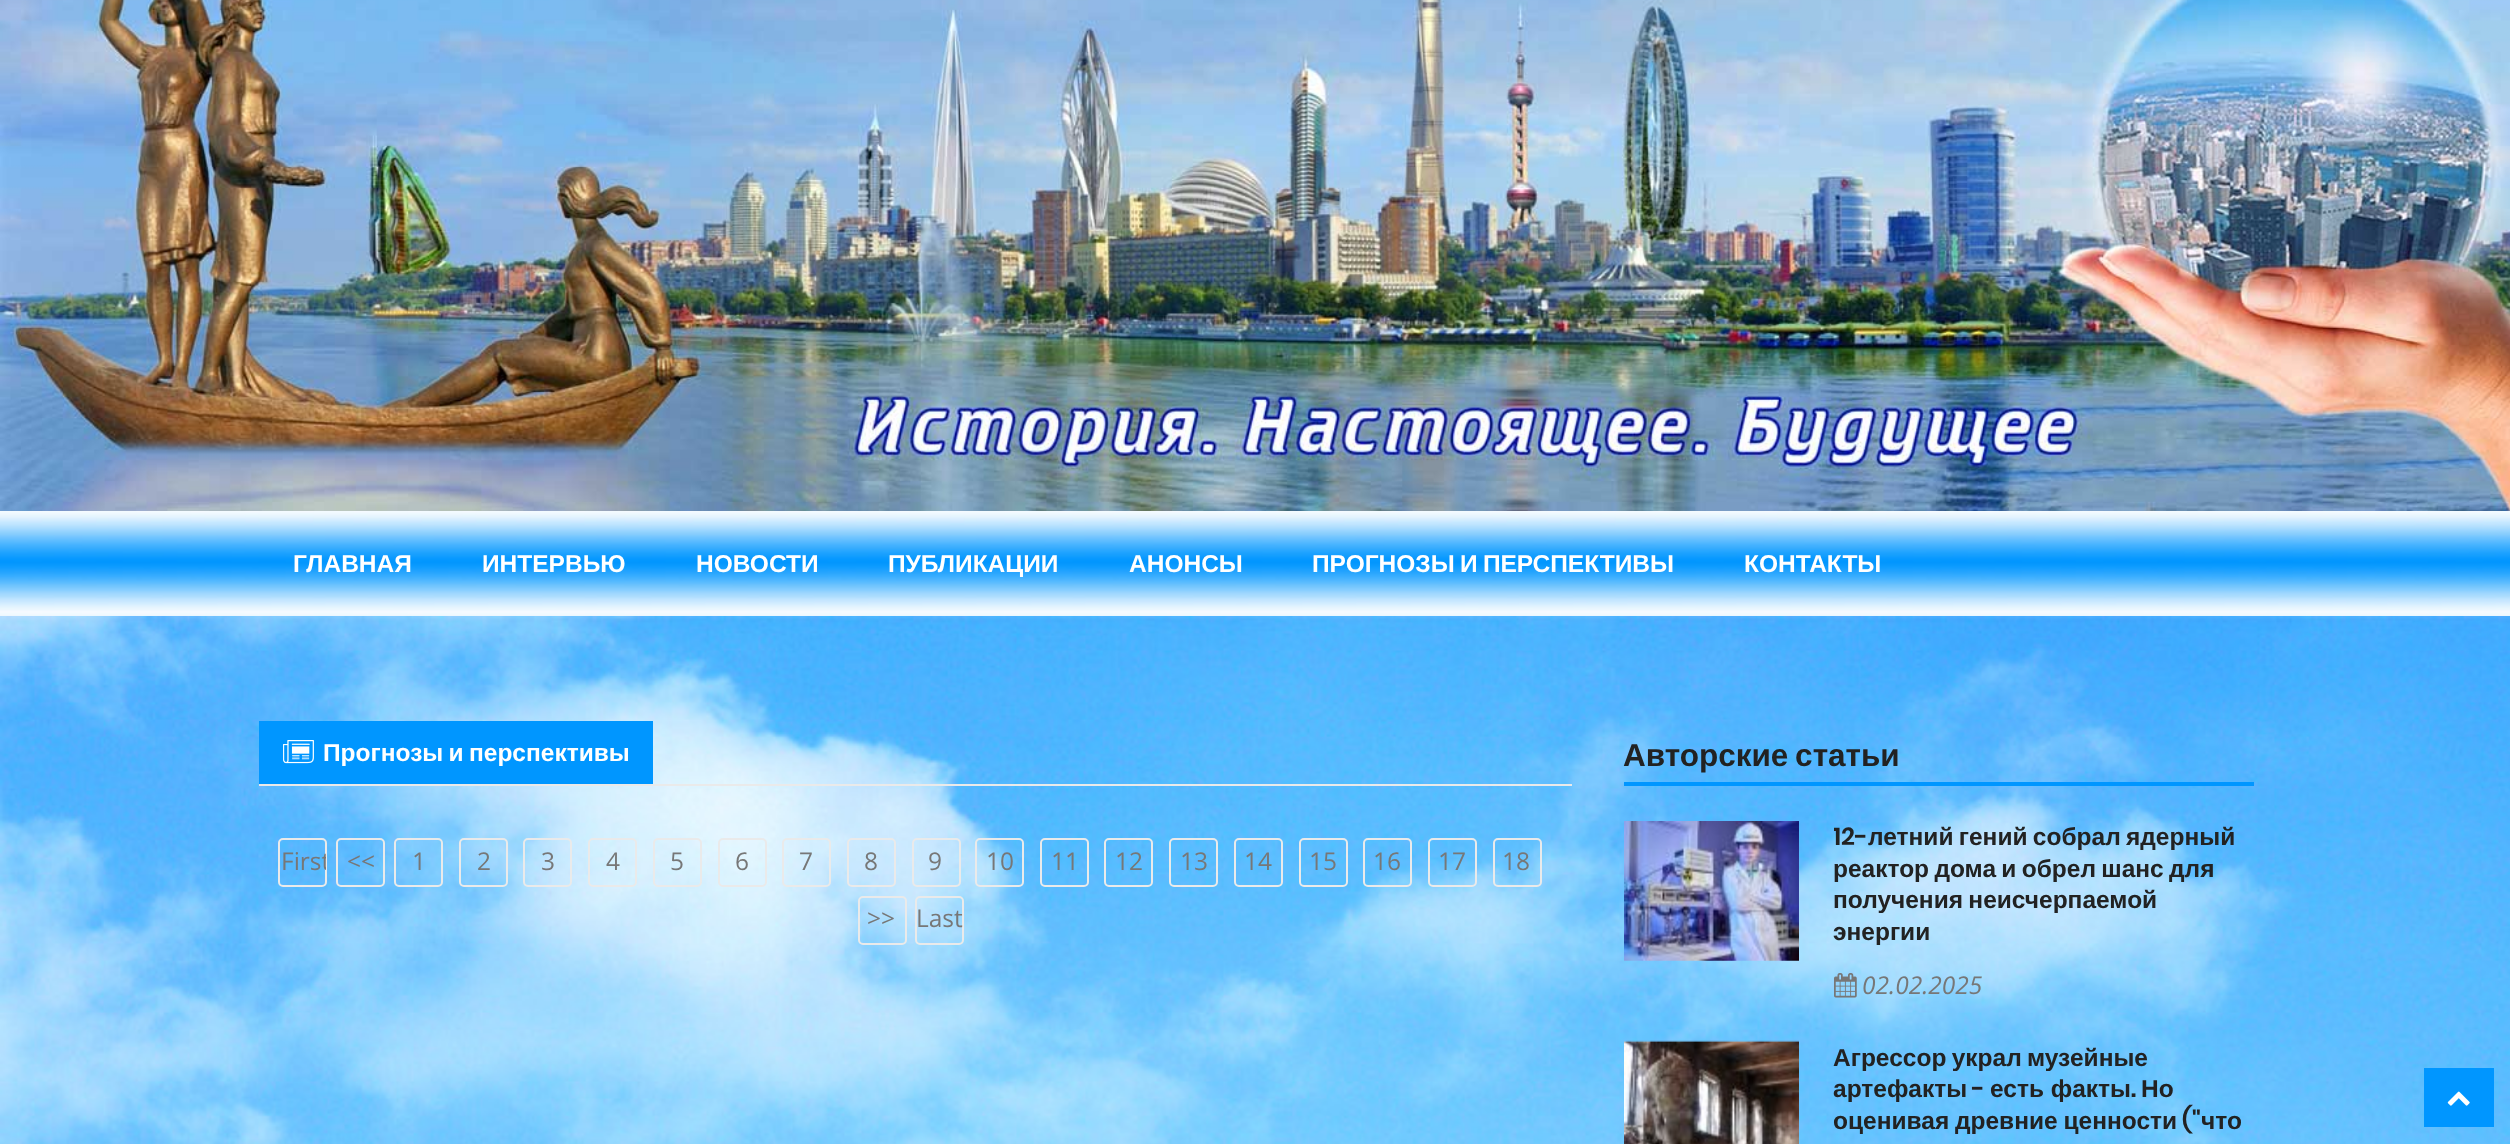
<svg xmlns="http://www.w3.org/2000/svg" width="2510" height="1144">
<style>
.a{font:bold 24.5px Liberation Sans;fill:#fff}
.b{font:24.5px Open Sans;fill:#777}
.c{font:bold 31.5px Liberation Sans;fill:#222}
.d{font:600 24.5px Poppins;fill:#222}
.e{font:bold 24.5px Liberation Sans;fill:#222}
.f{font:italic 24.5px Open Sans;fill:#777}
</style>
<defs>
<clipPath id="clip1"><rect x="280" y="840" width="46" height="46" rx="4"/></clipPath>
<clipPath id="clip2"><path d="M1834 821h420v126H1834z"/></clipPath>
</defs>
<rect width="100%" height="100%" fill="#fff"/>
<image href="1.png" x="0" y="0" width="2510" height="511"/>
<image href="2.png" x="0" y="511" width="2510" height="105"/>
<image href="3.png" x="0" y="616" width="2510" height="528"/>
<path fill="#eaeaea" d="M259 784h1313v2H259z"/>
<path fill="#0096ff" d="M259 721h394v63H259z"/>
<image href="4.png" x="283" y="740" width="31" height="24"/>
<rect fill="none" stroke="#eaeaea" stroke-width="2" x="279" y="839" width="47" height="47" rx="4"/>
<rect fill="none" stroke="#eaeaea" stroke-width="2" x="337" y="839" width="47" height="47" rx="4"/>
<rect fill="none" stroke="#eaeaea" stroke-width="2" x="395" y="839" width="47" height="47" rx="4"/>
<rect fill="none" stroke="#eaeaea" stroke-width="2" x="460" y="839" width="47" height="47" rx="4"/>
<rect fill="none" stroke="#eaeaea" stroke-width="2" x="524" y="839" width="47" height="47" rx="4"/>
<rect fill="none" stroke="#eaeaea" stroke-width="2" x="589" y="839" width="47" height="47" rx="4"/>
<rect fill="none" stroke="#eaeaea" stroke-width="2" x="654" y="839" width="47" height="47" rx="4"/>
<rect fill="none" stroke="#eaeaea" stroke-width="2" x="719" y="839" width="47" height="47" rx="4"/>
<rect fill="none" stroke="#eaeaea" stroke-width="2" x="783" y="839" width="47" height="47" rx="4"/>
<rect fill="none" stroke="#eaeaea" stroke-width="2" x="848" y="839" width="47" height="47" rx="4"/>
<rect fill="none" stroke="#eaeaea" stroke-width="2" x="913" y="839" width="47" height="47" rx="4"/>
<rect fill="none" stroke="#eaeaea" stroke-width="2" x="976" y="839" width="47" height="47" rx="4"/>
<rect fill="none" stroke="#eaeaea" stroke-width="2" x="1041" y="839" width="47" height="47" rx="4"/>
<rect fill="none" stroke="#eaeaea" stroke-width="2" x="1105" y="839" width="47" height="47" rx="4"/>
<rect fill="none" stroke="#eaeaea" stroke-width="2" x="1170" y="839" width="47" height="47" rx="4"/>
<rect fill="none" stroke="#eaeaea" stroke-width="2" x="1235" y="839" width="47" height="47" rx="4"/>
<rect fill="none" stroke="#eaeaea" stroke-width="2" x="1300" y="839" width="47" height="47" rx="4"/>
<rect fill="none" stroke="#eaeaea" stroke-width="2" x="1364" y="839" width="47" height="47" rx="4"/>
<rect fill="none" stroke="#eaeaea" stroke-width="2" x="1429" y="839" width="47" height="47" rx="4"/>
<rect fill="none" stroke="#eaeaea" stroke-width="2" x="1494" y="839" width="47" height="47" rx="4"/>
<rect fill="none" stroke="#eaeaea" stroke-width="2" x="859" y="897" width="47" height="47" rx="4"/>
<rect fill="none" stroke="#eaeaea" stroke-width="2" x="916" y="897" width="47" height="47" rx="4"/>
<path fill="#0096ff" d="M1624 782h630v4H1624z"/>
<image href="5.png" x="1624" y="821" width="175" height="140"/>
<image href="6.png" x="1834" y="973" width="23" height="25"/>
<image href="7.png" x="1624" y="1040" width="175" height="104"/>
<path fill="#0096ff" d="M2424 1068h70v59H2424z"/>
<image href="8.png" x="2447" y="1091" width="23" height="15"/>
<text class="a" x="293" y="572">ГЛАВНАЯ</text>
<text class="a" x="482" y="572">ИНТЕРВЬЮ</text>
<text class="a" x="696" y="572">НОВОСТИ</text>
<text class="a" x="888" y="572">ПУБЛИКАЦИИ</text>
<text class="a" x="1129" y="572">АНОНСЫ</text>
<text class="a" x="1312" y="572" word-spacing="-1.5">ПРОГНОЗЫ И ПЕРСПЕКТИВЫ</text>
<text class="a" x="1744" y="572">КОНТАКТЫ</text>
<text class="a" x="323" y="761" word-spacing="-1.5">Прогнозы и перспективы</text>
<g clip-path="url(#clip1)">
<text class="b" x="281" y="870">First</text>
</g>
<text class="b" x="347" y="870">&lt;&lt;</text>
<text class="b" x="412" y="870">1</text>
<text class="b" x="477" y="870">2</text>
<text class="b" x="541" y="870">3</text>
<text class="b" x="606" y="870">4</text>
<text class="b" x="670" y="870">5</text>
<text class="b" x="735" y="870">6</text>
<text class="b" x="799" y="870">7</text>
<text class="b" x="864" y="870">8</text>
<text class="b" x="928" y="870">9</text>
<text class="b" x="986" y="870">10</text>
<text class="b" x="1051" y="870">11</text>
<text class="b" x="1115" y="870">12</text>
<text class="b" x="1180" y="870">13</text>
<text class="b" x="1244" y="870">14</text>
<text class="b" x="1309" y="870">15</text>
<text class="b" x="1373" y="870">16</text>
<text class="b" x="1438" y="870">17</text>
<text class="b" x="1502" y="870">18</text>
<text class="b" x="867" y="927">&gt;&gt;</text>
<text class="b" x="916" y="927">Last</text>
<text class="c" x="1623" y="766" word-spacing="-2">Авторские статьи</text>
<g clip-path="url(#clip2)">
<text class="d" x="1833" y="845">12-</text>
</g>
<text class="e" x="1868" y="845" word-spacing="-1.5">летний гений собрал ядерный</text>
<text class="e" x="1833" y="877" word-spacing="-1.5">реактор дома и обрел шанс для</text>
<text class="e" x="1833" y="908" word-spacing="-1.5">получения неисчерпаемой</text>
<text class="e" x="1833" y="940">энергии</text>
<text class="f" x="1862" y="994">02.02.2025</text>
<text class="e" x="1833" y="1066" word-spacing="-1.5">Агрессор украл музейные</text>
<text class="e" x="1833" y="1097">артефакты</text>
<text class="d" x="1972" y="1097">-</text>
<text class="e" x="1990" y="1097">есть факты</text>
<text class="e" x="2141" y="1097">Но</text>
<text class="d" x="2131" y="1097">.</text>
<text class="e" x="1833" y="1129" word-spacing="-1">оценивая древние ценности</text>
<text class="d" x="2182" y="1129">("</text>
<text class="e" x="2201" y="1129">что</text>
</svg>
